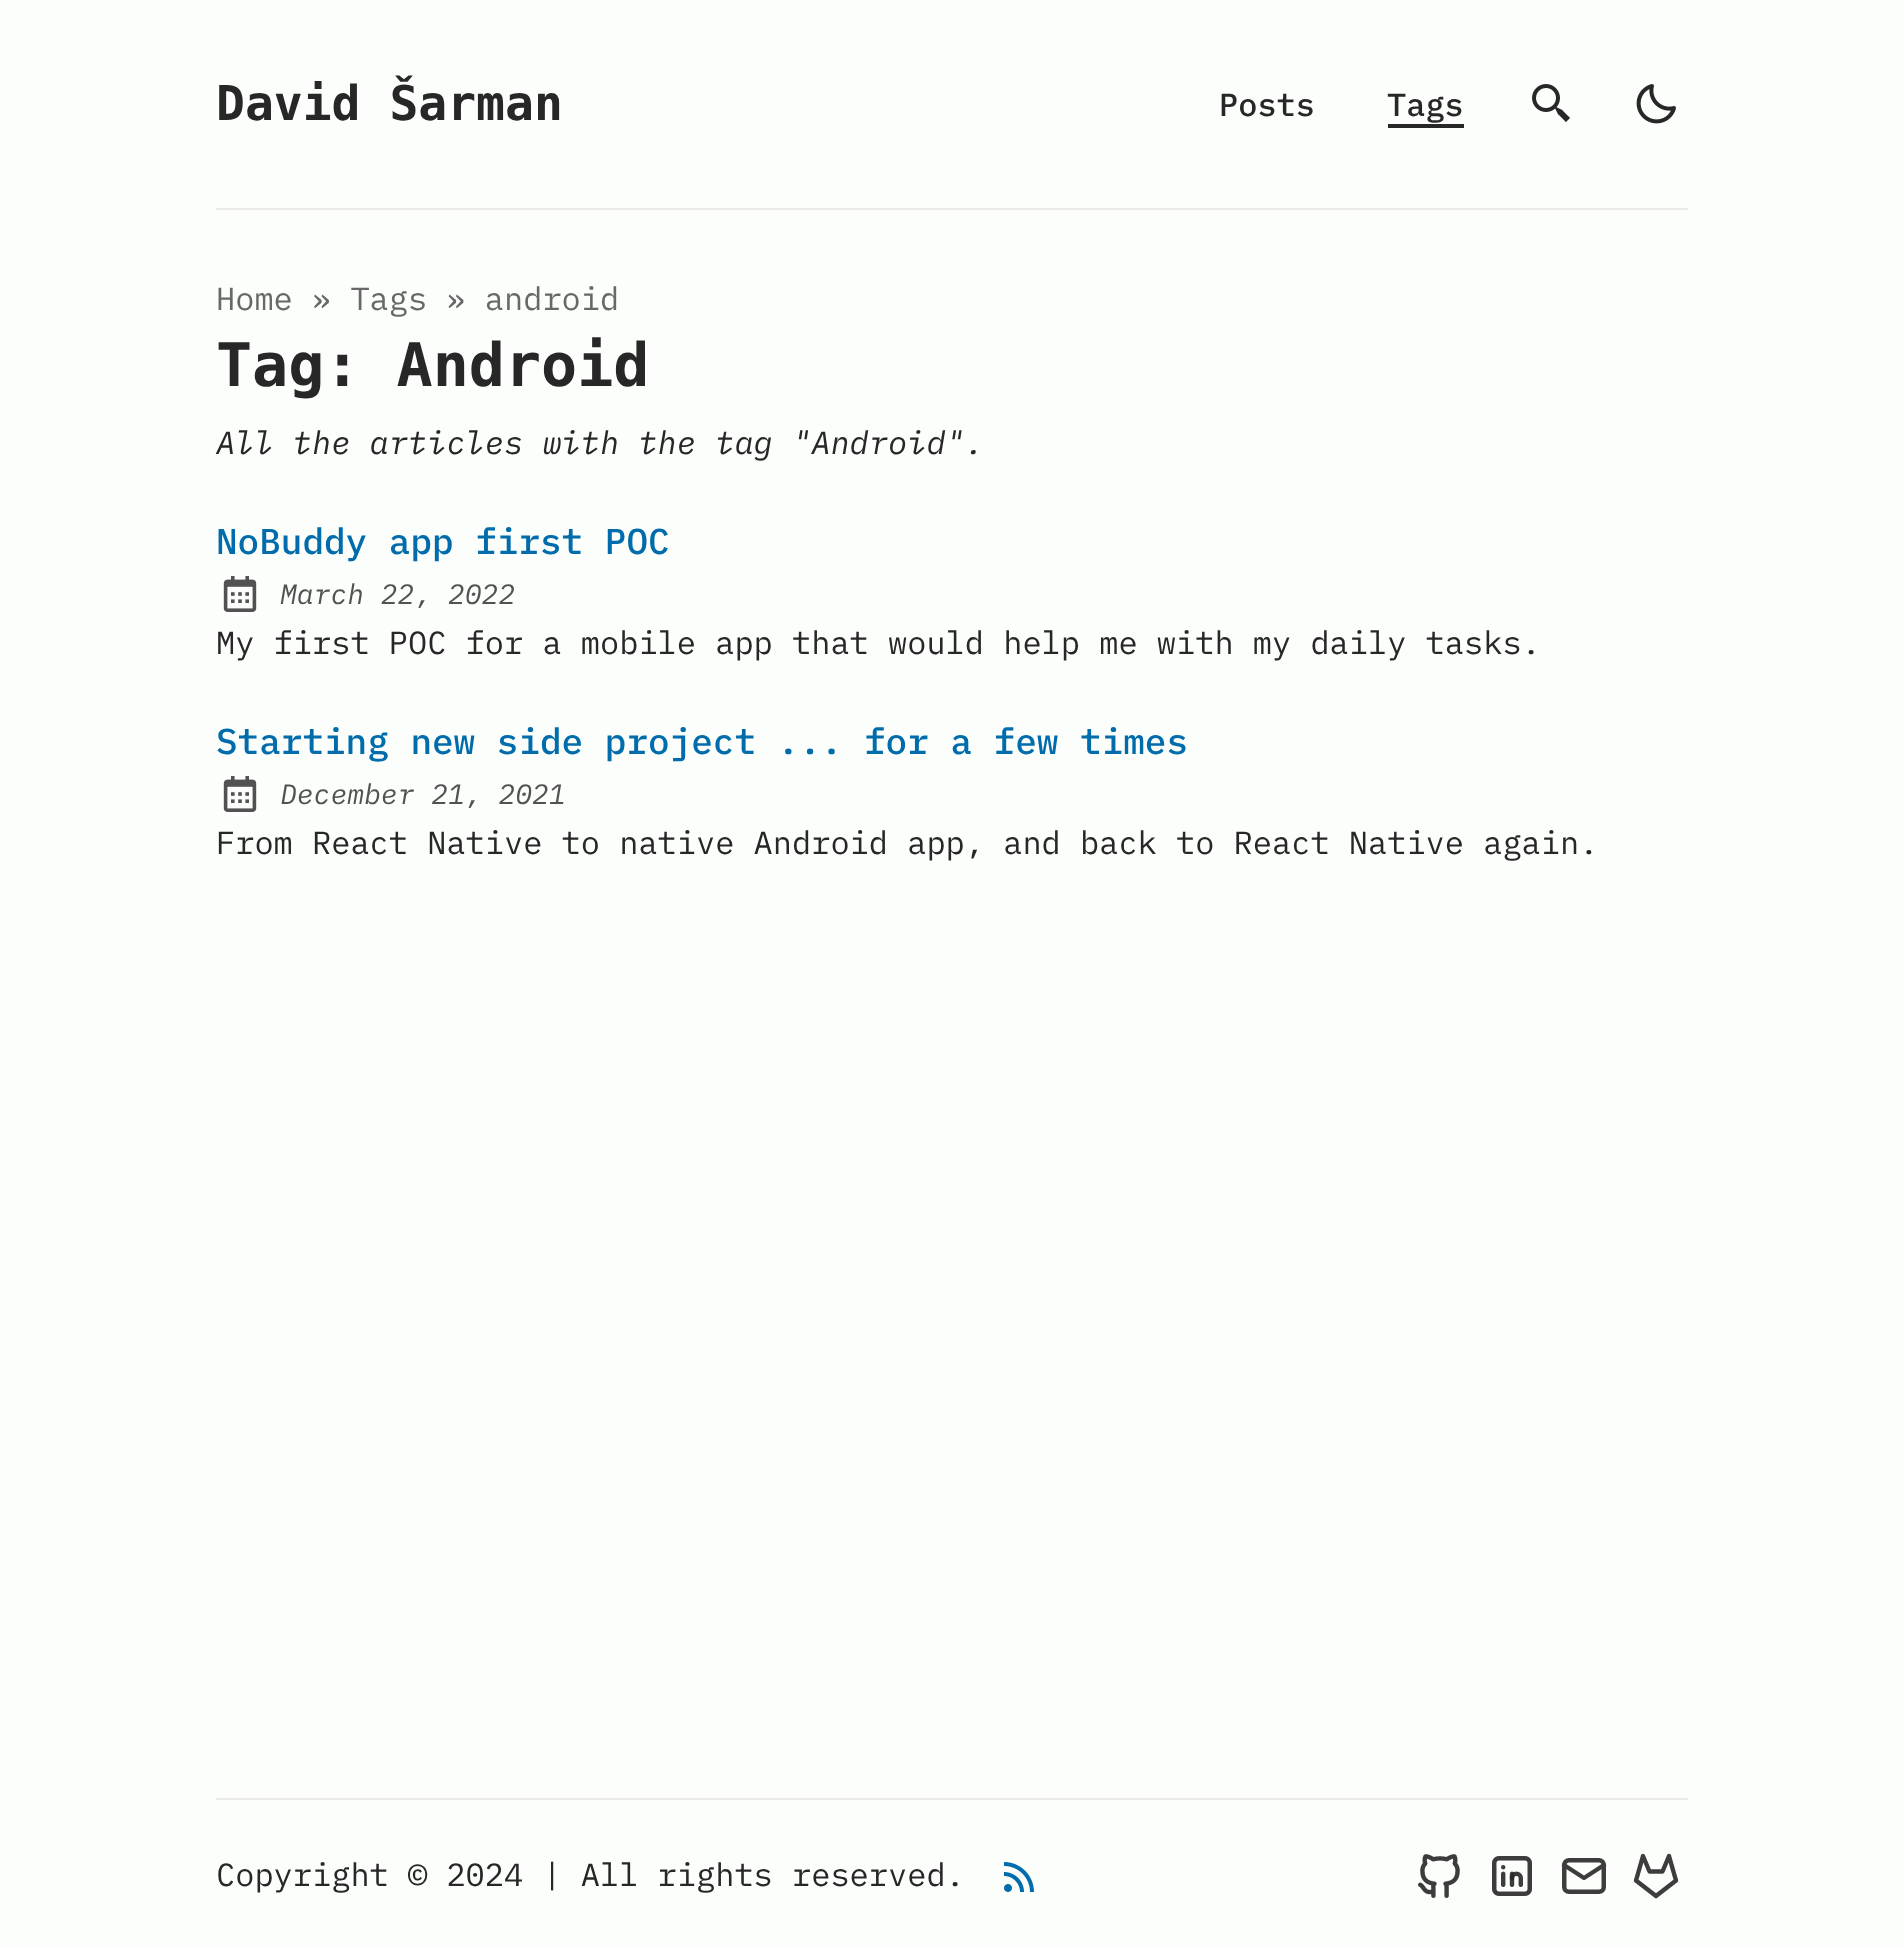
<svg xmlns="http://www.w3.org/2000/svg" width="1904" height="1947">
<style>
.a{font:bold 48px DejaVu Sans Mono;fill:#282728}
.b{font:500 32px IBM Plex Mono;fill:#282728}
.c{font:32px IBM Plex Mono;fill:#676867}
.d{font:bold 60px DejaVu Sans Mono;fill:#282728}
.e{font:italic 32px IBM Plex Mono;fill:#282728}
.f{font:500 36px IBM Plex Mono;fill:#006cac}
.g{font:italic 28px IBM Plex Mono;fill:#525252}
.h{font:32px IBM Plex Mono;fill:#282728}
</style>
<rect width="100%" height="100%" fill="#fbfefb"/>
<path fill="#282728" d="M1388 124h76v4H1388z"/>
<image href="1.png" x="1532" y="84" width="38" height="38"/>
<image href="2.png" x="1636" y="84" width="40" height="40"/>
<path fill="#ece9e9" d="M216 208h1472v2H216z"/>
<image href="3.png" x="223" y="576" width="34" height="36"/>
<image href="3.png" x="223" y="776" width="34" height="36"/>
<path fill="#ece9e9" d="M216 1798h1472v2H216z"/>
<image href="4.png" x="1004" y="1862" width="30" height="30"/>
<image href="5.png" x="1418" y="1854" width="42" height="44"/>
<image href="6.png" x="1492" y="1856" width="40" height="40"/>
<rect fill="none" stroke="#3d3d3d" stroke-width="4.5" x="1564.25" y="1860.25" width="39.5" height="31.5" rx="4.75"/>
<path fill="none" stroke="#3d3d3d" stroke-width="4.4" stroke-linecap="round" stroke-linejoin="round" d="M1564 1865l20 13l20-13"/>
<path fill="none" stroke="#3d3d3d" stroke-width="4.4" stroke-linecap="round" stroke-linejoin="round" d="M1676 1880.5l-20 15.5l-20-15.5l7-24.5l6.5 15.5h13l6.5-15.5z"/>
<text class="a" x="216" y="120">David Šarman</text>
<text class="b" x="1219" y="116">Posts</text>
<text class="b" x="1387" y="116">Tags</text>
<text class="c" x="216" y="310">Home » Tags » android</text>
<text class="d" x="216" y="386">Tag: Android</text>
<text class="e" x="216" y="454">All the articles with the tag "Android".</text>
<text class="f" x="216" y="554">NoBuddy app first POC</text>
<text class="g" x="280" y="604">March 22, 2022</text>
<text class="h" x="216" y="654">My first POC for a mobile app that would help me with my daily tasks.</text>
<text class="f" x="216" y="754">Starting new side project ... for a few times</text>
<text class="g" x="280" y="804">December 21, 2021</text>
<text class="h" x="216" y="854">From React Native to native Android app, and back to React Native again.</text>
<text class="h" x="216" y="1886">Copyright © 2024 | All rights reserved.</text>
</svg>
